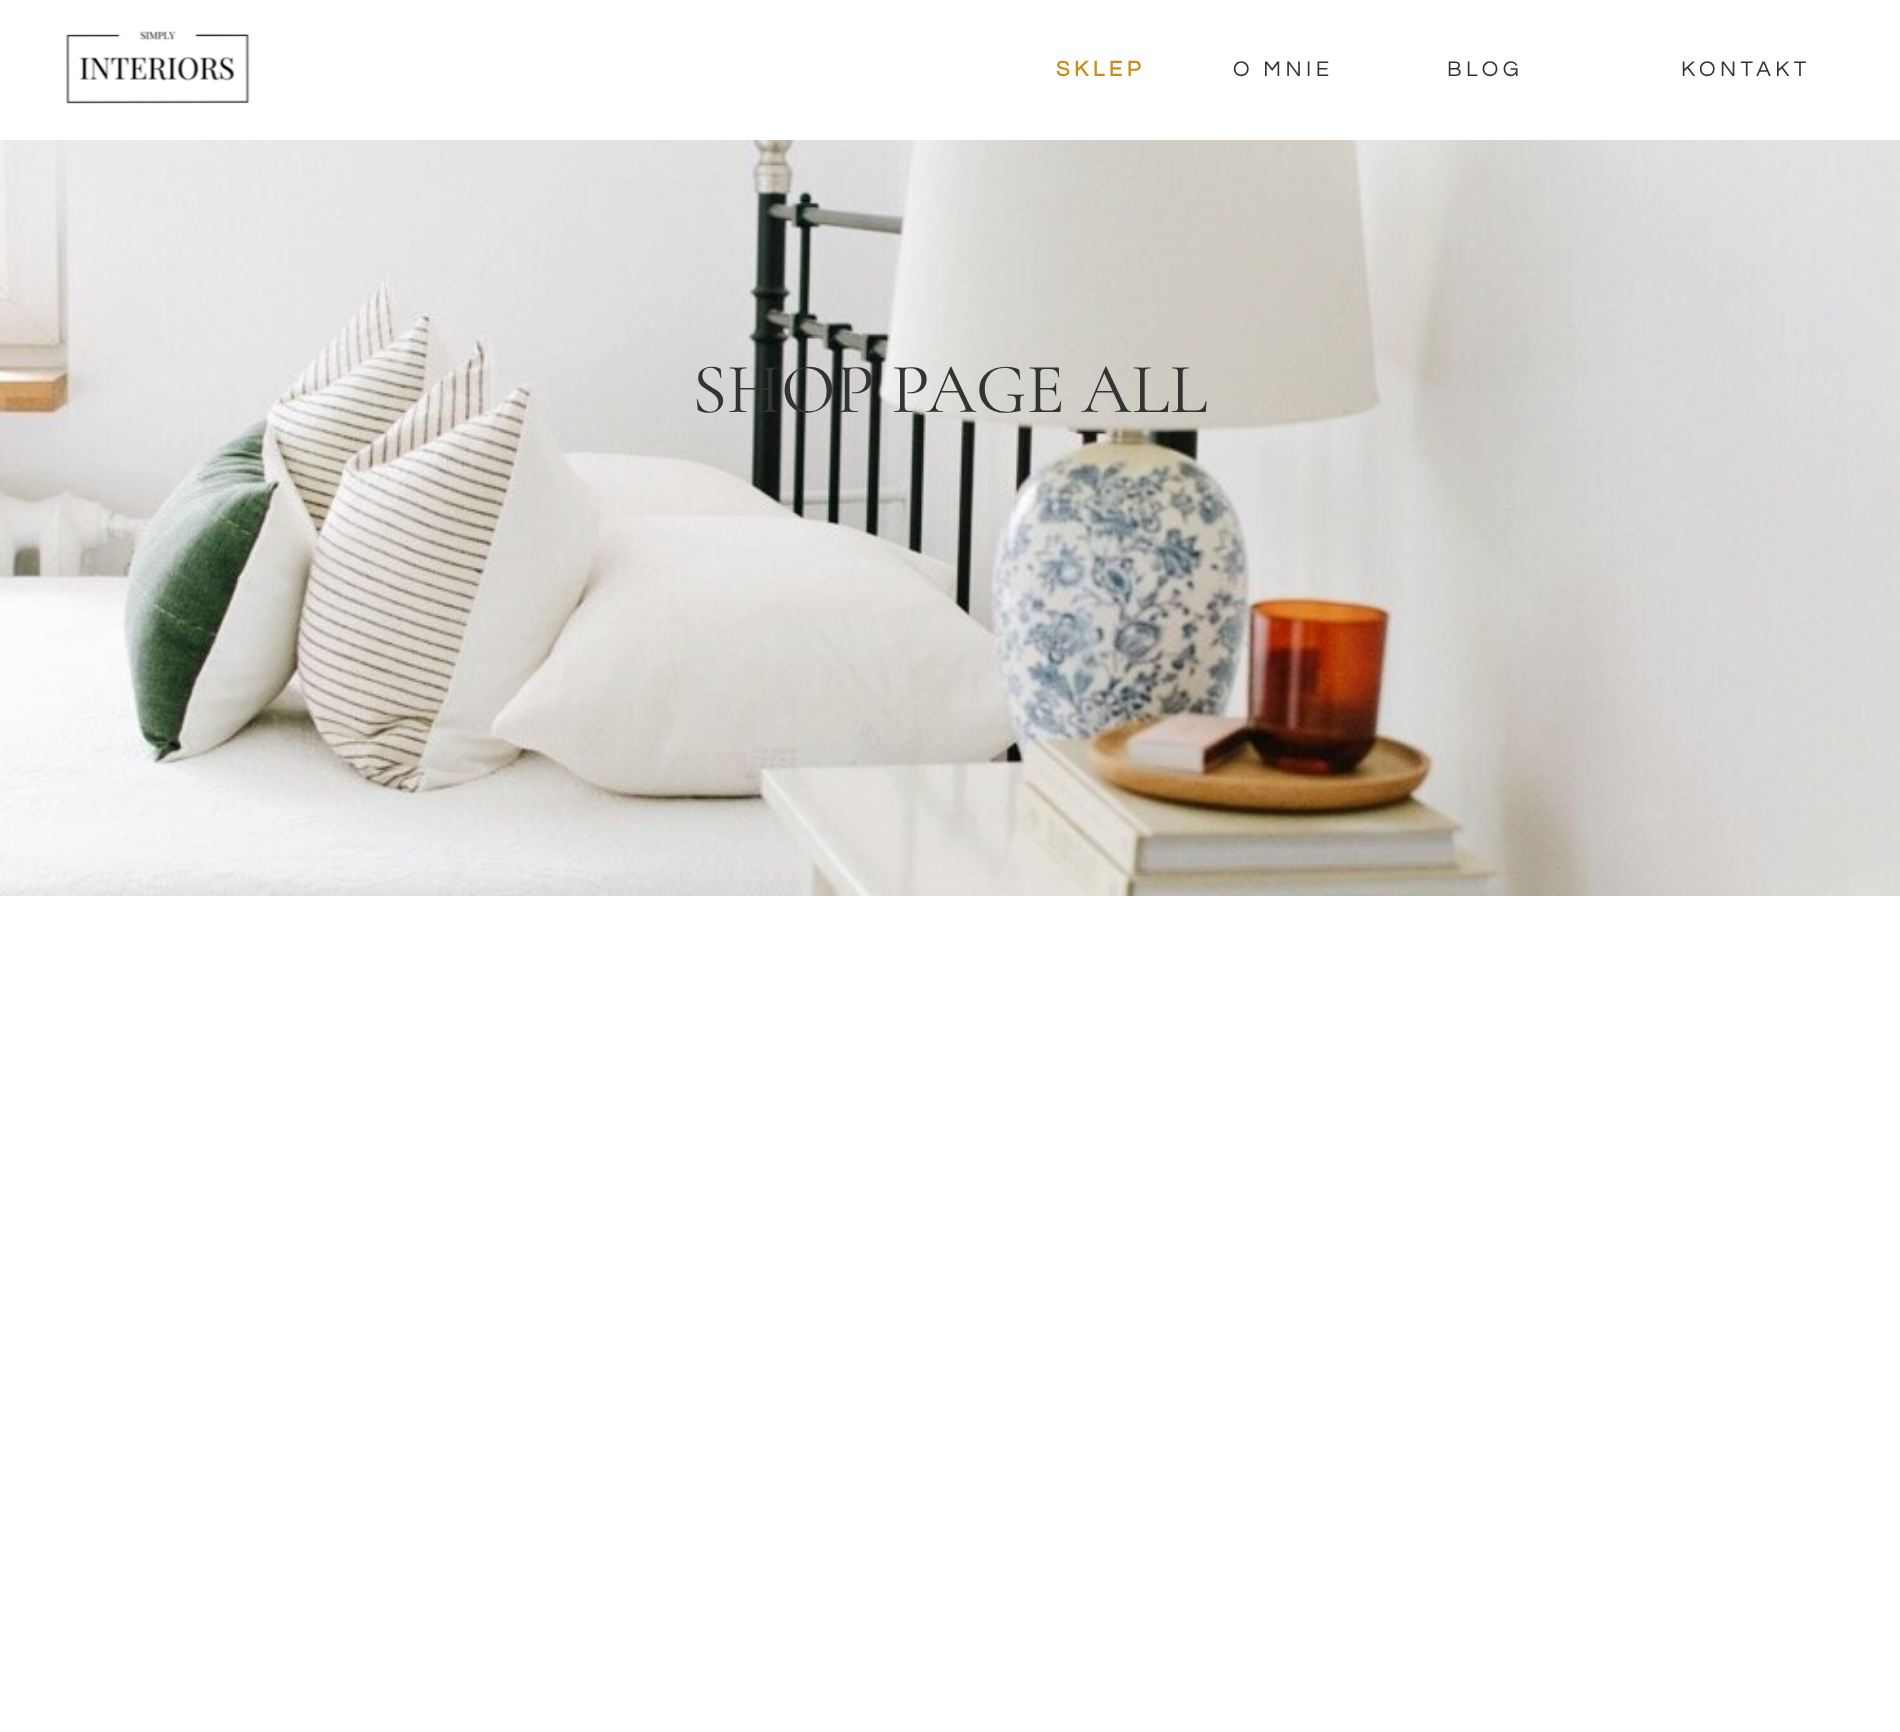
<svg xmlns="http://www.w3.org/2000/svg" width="1900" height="1732">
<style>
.a{font:bold 22px Questrial;letter-spacing:4.5px;fill:#ca8c17}
.b{font:22px Questrial;letter-spacing:4.5px;fill:#333}
.c{font:300 71.25px Cormorant Garamond;fill:#333}
</style>
<rect width="100%" height="100%" fill="#fff"/>
<image href="1.png" x="66" y="31" width="184" height="73"/>
<image href="2.png" x="0" y="140" width="1900" height="756"/>
<text class="a" x="1056" y="76">SKLEP</text>
<text class="b" x="1233" y="76">O MNIE</text>
<text class="b" x="1447" y="76">BLOG</text>
<text class="b" x="1681" y="76">KONTAKT</text>
<text class="c" x="692" y="412">SHOP PAGE ALL</text>
</svg>
